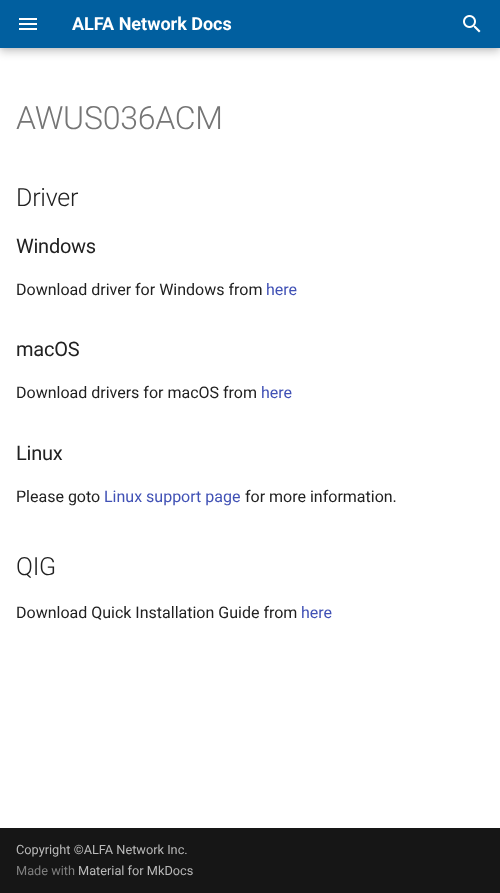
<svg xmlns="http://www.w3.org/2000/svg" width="500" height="893">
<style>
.a{font:bold 18px Roboto;fill:#fff}
.b{font:300 32px Roboto;letter-spacing:-0.25px;fill:#757575}
.c{font:300 25px Roboto;letter-spacing:-0.25px;fill:#212121}
.d{font:20px Roboto;letter-spacing:-0.25px;fill:#212121}
.e{font:16px Roboto;fill:#212121}
.f{font:16px Roboto;fill:#4051b5}
.g{font:12.75px Roboto;fill:#b9b9b9}
.h{font:12.75px Roboto;fill:#7f7f7f}
</style>
<rect width="100%" height="100%" fill="#fff"/>
<path fill="#00000033" filter="blur(4px)" d="M0 4h500v48H0z"/>
<path fill="#0000001a" filter="blur(2px)" d="M0 0h500v48H0z"/>
<path fill="#015f9f" d="M0 0h500v48H0z"/>
<image href="1.png" x="19" y="18" width="18" height="12"/>
<image href="2.png" x="463" y="15" width="18" height="18"/>
<path fill="#161616" d="M0 828h500v65H0z"/>
<text class="a" x="72" y="30">ALFA Network Docs</text>
<text class="b" x="16" y="129">AWUS036ACM</text>
<text class="c" x="16" y="206">Driver</text>
<text class="d" x="16" y="253">Windows</text>
<text class="e" x="16" y="295">Download driver for Windows from</text>
<text class="f" x="266" y="295">here</text>
<text class="d" x="16" y="356">macOS</text>
<text class="e" x="16" y="398">Download drivers for macOS from</text>
<text class="f" x="261" y="398">here</text>
<text class="d" x="16" y="460">Linux</text>
<text class="e" x="16" y="502">Please goto</text>
<text class="f" x="104" y="502">Linux support page</text>
<text class="e" x="245" y="502">for more information.</text>
<text class="c" x="16" y="575">QIG</text>
<text class="e" x="16" y="618">Download Quick Installation Guide from</text>
<text class="f" x="301" y="618">here</text>
<text class="g" x="16" y="854">Copyright ©ALFA Network Inc.</text>
<text class="h" x="16" y="875">Made with</text>
<text class="g" x="78" y="875">Material for MkDocs</text>
</svg>
